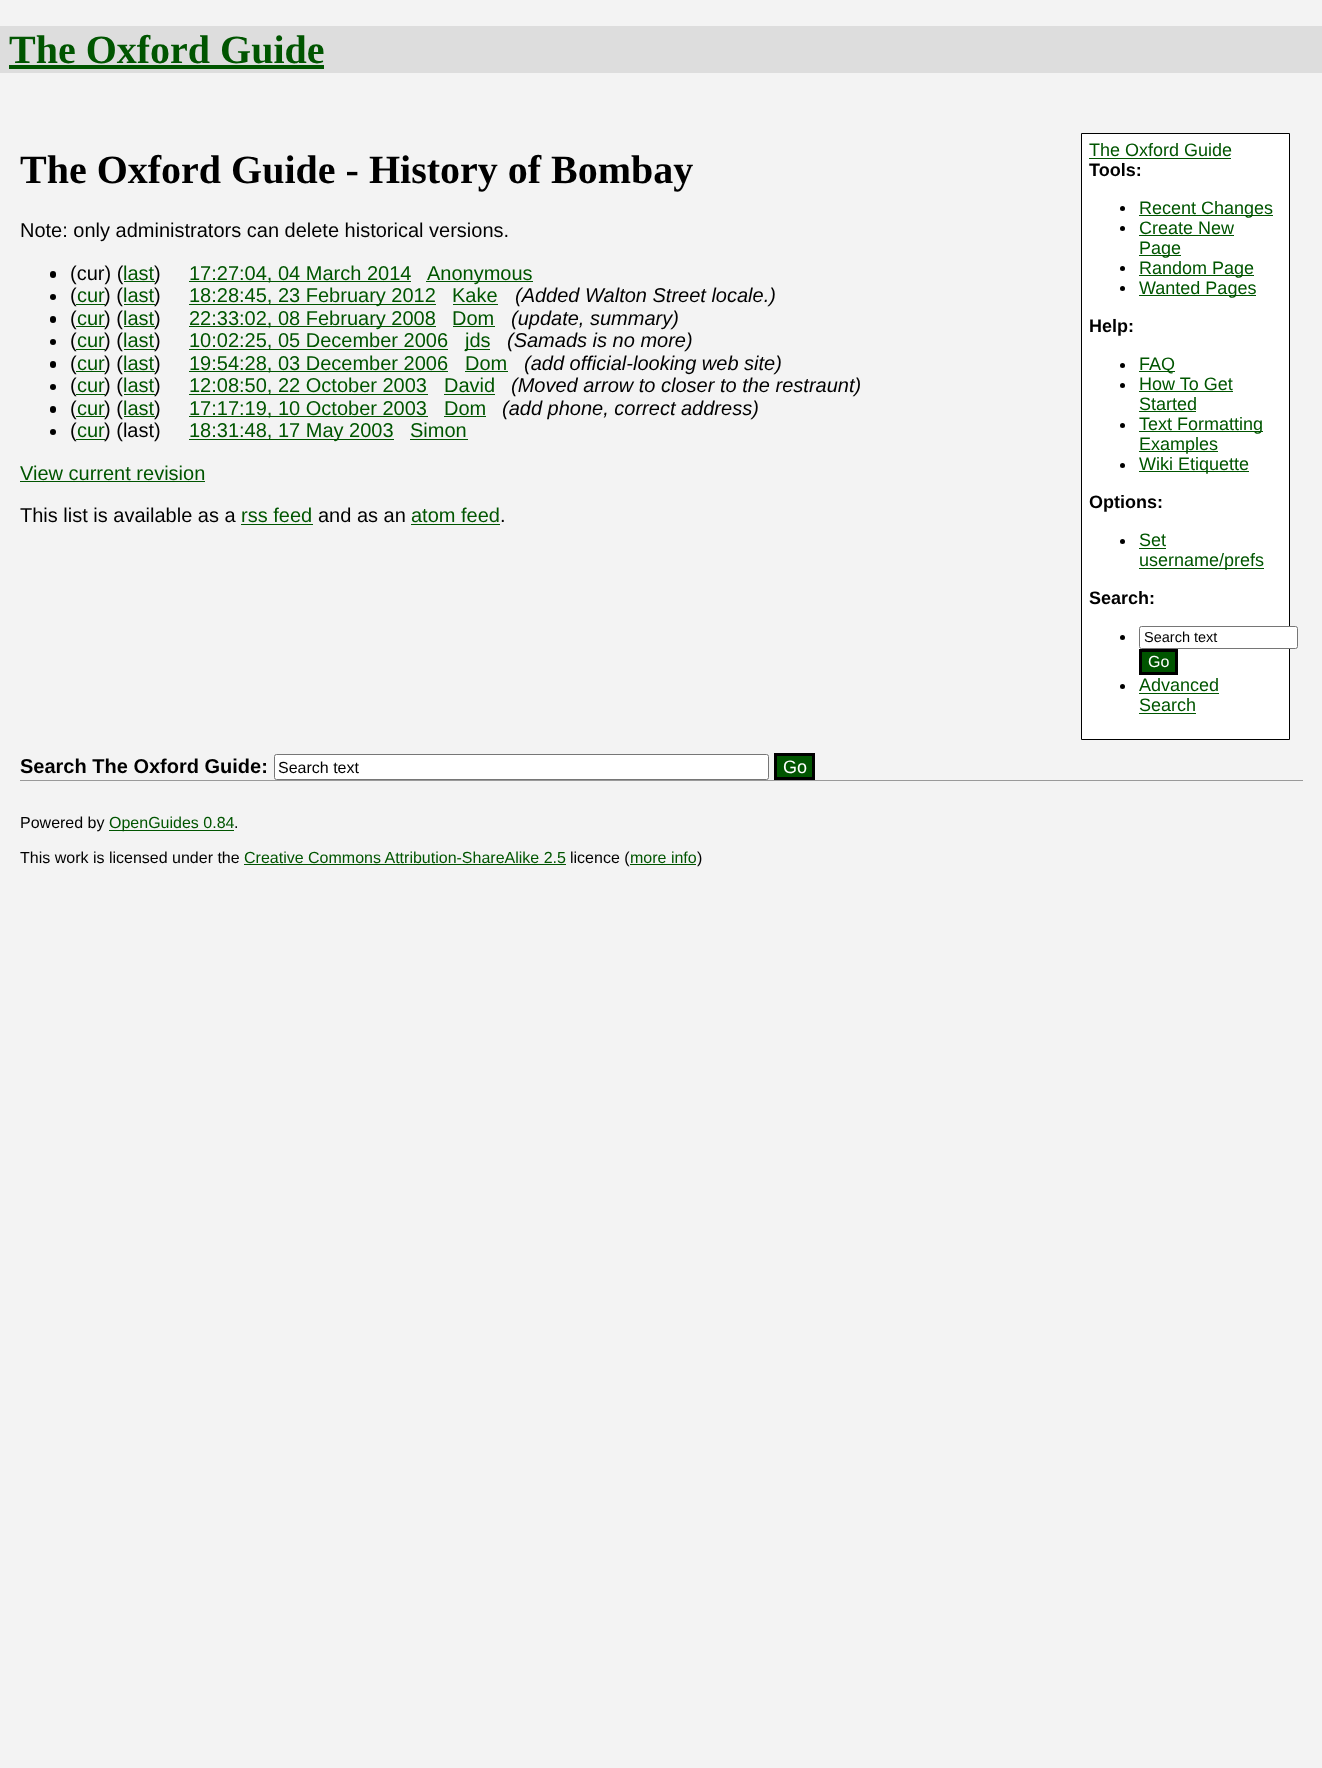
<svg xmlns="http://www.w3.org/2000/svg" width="1322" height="1768">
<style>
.a{font:bold 40px Liberation Serif;fill:#050}
.b{font:bold 40px Liberation Serif;fill:#000}
.c{font:20px Liberation Sans;fill:#000}
.d{font:20px Liberation Sans;fill:#050}
.e{font:italic 20px Liberation Sans;fill:#000}
.f{font:18px Liberation Sans;fill:#050}
.g{font:bold 18px Liberation Sans;fill:#000}
.h{font:14.5px Liberation Sans;fill:#000}
.i{font:16px Liberation Sans;fill:#fff}
.j{font:bold 20px Liberation Sans;fill:#000}
.k{font:16px Liberation Sans;fill:#000}
.l{font:18px Liberation Sans;fill:#fff}
.m{font:16px Liberation Sans;fill:#050}
</style>
<rect width="100%" height="100%" fill="#f3f3f3"/>
<path fill="#ddd" d="M0 26h1322v47H0z"/>
<path fill="#050" d="M9 65h315v4H9z"/>
<rect fill="#000" x="50" y="271" width="6" height="7" rx="3"/>
<path fill="#050" d="M124 281h31v1H124z"/>
<path fill="#050" d="M189 281h222v1H189z"/>
<path fill="#050" d="M426 281h107v1H426z"/>
<circle fill="#000" cx="53" cy="297" r="3"/>
<path fill="#050" d="M124 304h31v1H124z"/>
<path fill="#050" d="M189 304h247v1H189z"/>
<path fill="#050" d="M453 304h45v1H453z"/>
<rect fill="#000" x="50" y="316" width="6" height="7" rx="3"/>
<path fill="#050" d="M124 326h31v1H124z"/>
<path fill="#050" d="M189 326h247v1H189z"/>
<path fill="#050" d="M453 326h42v1H453z"/>
<circle fill="#000" cx="53" cy="342" r="3"/>
<path fill="#050" d="M124 349h31v1H124z"/>
<path fill="#050" d="M189 349h259v1H189z"/>
<path fill="#050" d="M465 349h25v1H465z"/>
<rect fill="#000" x="50" y="361" width="6" height="7" rx="3"/>
<path fill="#050" d="M124 371h31v1H124z"/>
<path fill="#050" d="M189 371h259v1H189z"/>
<path fill="#050" d="M465 371h43v1H465z"/>
<circle fill="#000" cx="53" cy="387" r="3"/>
<path fill="#050" d="M124 394h31v1H124z"/>
<path fill="#050" d="M189 394h239v1H189z"/>
<path fill="#050" d="M444 394h51v1H444z"/>
<rect fill="#000" x="50" y="406" width="6" height="7" rx="3"/>
<path fill="#050" d="M124 416h31v1H124z"/>
<path fill="#050" d="M189 416h239v1H189z"/>
<path fill="#050" d="M444 416h42v1H444z"/>
<circle fill="#000" cx="53" cy="432" r="3"/>
<path fill="#050" d="M189 439h205v1H189z"/>
<path fill="#050" d="M410 439h58v1H410z"/>
<path fill="#050" d="M20 481h185v1H20z"/>
<path fill="#050" d="M241 524h72v1H241z"/>
<path fill="#050" d="M411 524h89v1H411z"/>
<path fill="#fff" stroke="#000" d="M1081.5 133.5h208v606H1081.5z"/>
<path fill="#050" d="M1089 158h142v1H1089z"/>
<circle fill="#000" cx="1122.5" cy="208.5" r="2.5"/>
<path fill="#050" d="M1139 215h134v1H1139z"/>
<circle fill="#000" cx="1122.5" cy="228.5" r="2.5"/>
<path fill="#050" d="M1139 235h95v1H1139z"/>
<path fill="#050" d="M1139 255h42v1H1139z"/>
<circle fill="#000" cx="1122.5" cy="268.5" r="2.5"/>
<path fill="#050" d="M1139 275h115v1H1139z"/>
<circle fill="#000" cx="1122.5" cy="288.5" r="2.5"/>
<path fill="#050" d="M1139 295h117v1H1139z"/>
<circle fill="#000" cx="1122.5" cy="365.5" r="2.5"/>
<path fill="#050" d="M1139 371h36v1H1139z"/>
<circle fill="#000" cx="1122.5" cy="385.5" r="2.5"/>
<path fill="#050" d="M1139 391h94v1H1139z"/>
<path fill="#050" d="M1139 411h57v1H1139z"/>
<circle fill="#000" cx="1122.5" cy="425.5" r="2.5"/>
<path fill="#050" d="M1139 431h124v1H1139z"/>
<path fill="#050" d="M1139 451h79v1H1139z"/>
<circle fill="#000" cx="1122.5" cy="465.5" r="2.5"/>
<path fill="#050" d="M1139 471h110v1H1139z"/>
<circle fill="#000" cx="1122.5" cy="541.5" r="2.5"/>
<path fill="#050" d="M1139 548h27v1H1139z"/>
<path fill="#050" d="M1139 568h125v1H1139z"/>
<circle fill="#000" cx="1122.5" cy="637.5" r="2.5"/>
<rect fill="#fff" stroke="#767676" x="1139.5" y="626.5" width="158" height="22" rx="2"/>
<path fill="#050" stroke="#000" stroke-width="3" d="M1140.5 650.5h36v23H1140.5z"/>
<circle fill="#000" cx="1122.5" cy="686.5" r="2.5"/>
<path fill="#050" d="M1139 693h80v1H1139z"/>
<path fill="#050" d="M1139 713h57v1H1139z"/>
<rect fill="#fff" stroke="#767676" x="274.5" y="754.5" width="494" height="25" rx="2"/>
<path fill="#050" stroke="#000" stroke-width="3" d="M775.5 754.5h38v24H775.5z"/>
<path fill="#999" d="M20 780h1283v1H20z"/>
<path fill="#050" d="M109 830h125v1H109z"/>
<path fill="#050" d="M244 864h322v1H244z"/>
<path fill="#050" d="M630 864h66v1H630z"/>
<text class="a" x="9" y="63">The Oxford Guide</text>
<text class="b" x="20" y="183">The Oxford Guide - History of Bombay</text>
<text class="c" x="20" y="237">Note: only administrators can delete historical versions.</text>
<text class="c" x="70" y="280">(cur) (</text>
<text class="d" x="123" y="280">last</text>
<text class="c" x="154" y="280">)</text>
<text class="d" x="189" y="280">17:27:04, 04 March 2014</text>
<text class="d" x="427" y="280">Anonymous</text>
<text class="c" x="70" y="302">(</text>
<text class="d" x="77" y="302">cur</text>
<path fill="#050" d="M76 304h29v1H76z"/>
<text class="c" x="104" y="302">) (</text>
<text class="d" x="123" y="302">last</text>
<text class="c" x="154" y="302">)</text>
<text class="d" x="189" y="302">18:28:45, 23 February 2012</text>
<text class="d" x="452" y="302">Kake</text>
<text class="e" x="515" y="302">(Added Walton Street locale.)</text>
<text class="c" x="70" y="325">(</text>
<text class="d" x="77" y="325">cur</text>
<path fill="#050" d="M76 326h29v1H76z"/>
<text class="c" x="104" y="325">) (</text>
<text class="d" x="123" y="325">last</text>
<text class="c" x="154" y="325">)</text>
<text class="d" x="189" y="325">22:33:02, 08 February 2008</text>
<text class="d" x="452" y="325">Dom</text>
<text class="e" x="511" y="325">(update, summary)</text>
<text class="c" x="70" y="347">(</text>
<text class="d" x="77" y="347">cur</text>
<path fill="#050" d="M76 349h29v1H76z"/>
<text class="c" x="104" y="347">) (</text>
<text class="d" x="123" y="347">last</text>
<text class="c" x="154" y="347">)</text>
<text class="d" x="189" y="347">10:02:25, 05 December 2006</text>
<text class="d" x="465" y="347">jds</text>
<text class="e" x="507" y="347">(Samads is no more)</text>
<text class="c" x="70" y="370">(</text>
<text class="d" x="77" y="370">cur</text>
<path fill="#050" d="M76 371h29v1H76z"/>
<text class="c" x="104" y="370">) (</text>
<text class="d" x="123" y="370">last</text>
<text class="c" x="154" y="370">)</text>
<text class="d" x="189" y="370">19:54:28, 03 December 2006</text>
<text class="d" x="465" y="370">Dom</text>
<text class="e" x="524" y="370">(add official-looking web site)</text>
<text class="c" x="70" y="392">(</text>
<text class="d" x="77" y="392">cur</text>
<path fill="#050" d="M76 394h29v1H76z"/>
<text class="c" x="104" y="392">) (</text>
<text class="d" x="123" y="392">last</text>
<text class="c" x="154" y="392">)</text>
<text class="d" x="189" y="392">12:08:50, 22 October 2003</text>
<text class="d" x="444" y="392">David</text>
<text class="e" x="511" y="392">(Moved arrow to closer to the restraunt)</text>
<text class="c" x="70" y="415">(</text>
<text class="d" x="77" y="415">cur</text>
<path fill="#050" d="M76 416h29v1H76z"/>
<text class="c" x="104" y="415">) (</text>
<text class="d" x="123" y="415">last</text>
<text class="c" x="154" y="415">)</text>
<text class="d" x="189" y="415">17:17:19, 10 October 2003</text>
<text class="d" x="444" y="415">Dom</text>
<text class="e" x="502" y="415">(add phone, correct address)</text>
<text class="c" x="70" y="437">(</text>
<text class="d" x="77" y="437">cur</text>
<path fill="#050" d="M76 439h29v1H76z"/>
<text class="c" x="104" y="437">) (last)</text>
<text class="d" x="189" y="437">18:31:48, 17 May 2003</text>
<text class="d" x="410" y="437">Simon</text>
<text class="d" x="20" y="480">View current revision</text>
<text class="c" x="20" y="522">This list is available as a</text>
<text class="d" x="241" y="522">rss feed</text>
<text class="c" x="318" y="522">and as an</text>
<text class="d" x="411" y="522">atom feed</text>
<text class="c" x="500" y="522">.</text>
<text class="f" x="1089" y="156">The Oxford Guide</text>
<text class="g" x="1089" y="176">Tools:</text>
<text class="f" x="1139" y="214">Recent Changes</text>
<text class="f" x="1139" y="234">Create New</text>
<text class="f" x="1139" y="254">Page</text>
<text class="f" x="1139" y="274">Random Page</text>
<text class="f" x="1139" y="294">Wanted Pages</text>
<text class="g" x="1089" y="332">Help:</text>
<text class="f" x="1139" y="370">FAQ</text>
<text class="f" x="1139" y="390">How To Get</text>
<text class="f" x="1139" y="410">Started</text>
<text class="f" x="1139" y="430">Text Formatting</text>
<text class="f" x="1139" y="450">Examples</text>
<text class="f" x="1139" y="470">Wiki Etiquette</text>
<text class="g" x="1089" y="508">Options:</text>
<text class="f" x="1139" y="546">Set</text>
<text class="f" x="1139" y="566">username/prefs</text>
<text class="g" x="1089" y="604">Search:</text>
<text class="h" x="1144" y="642">Search text</text>
<text class="i" x="1148" y="667">Go</text>
<text class="f" x="1139" y="691">Advanced</text>
<text class="f" x="1139" y="711">Search</text>
<text class="j" x="20" y="773">Search The Oxford Guide:</text>
<text class="k" x="278" y="773">Search text</text>
<text class="l" x="783" y="773">Go</text>
<text class="k" x="20" y="828">Powered by</text>
<text class="m" x="109" y="828">OpenGuides 0.84</text>
<text class="k" x="234" y="828">.</text>
<text class="k" x="20" y="863">This work is licensed under the</text>
<text class="m" x="244" y="863">Creative Commons Attribution-ShareAlike 2.5</text>
<text class="k" x="570" y="863">licence (</text>
<text class="m" x="630" y="863">more info</text>
<text class="k" x="697" y="863">)</text>
</svg>
